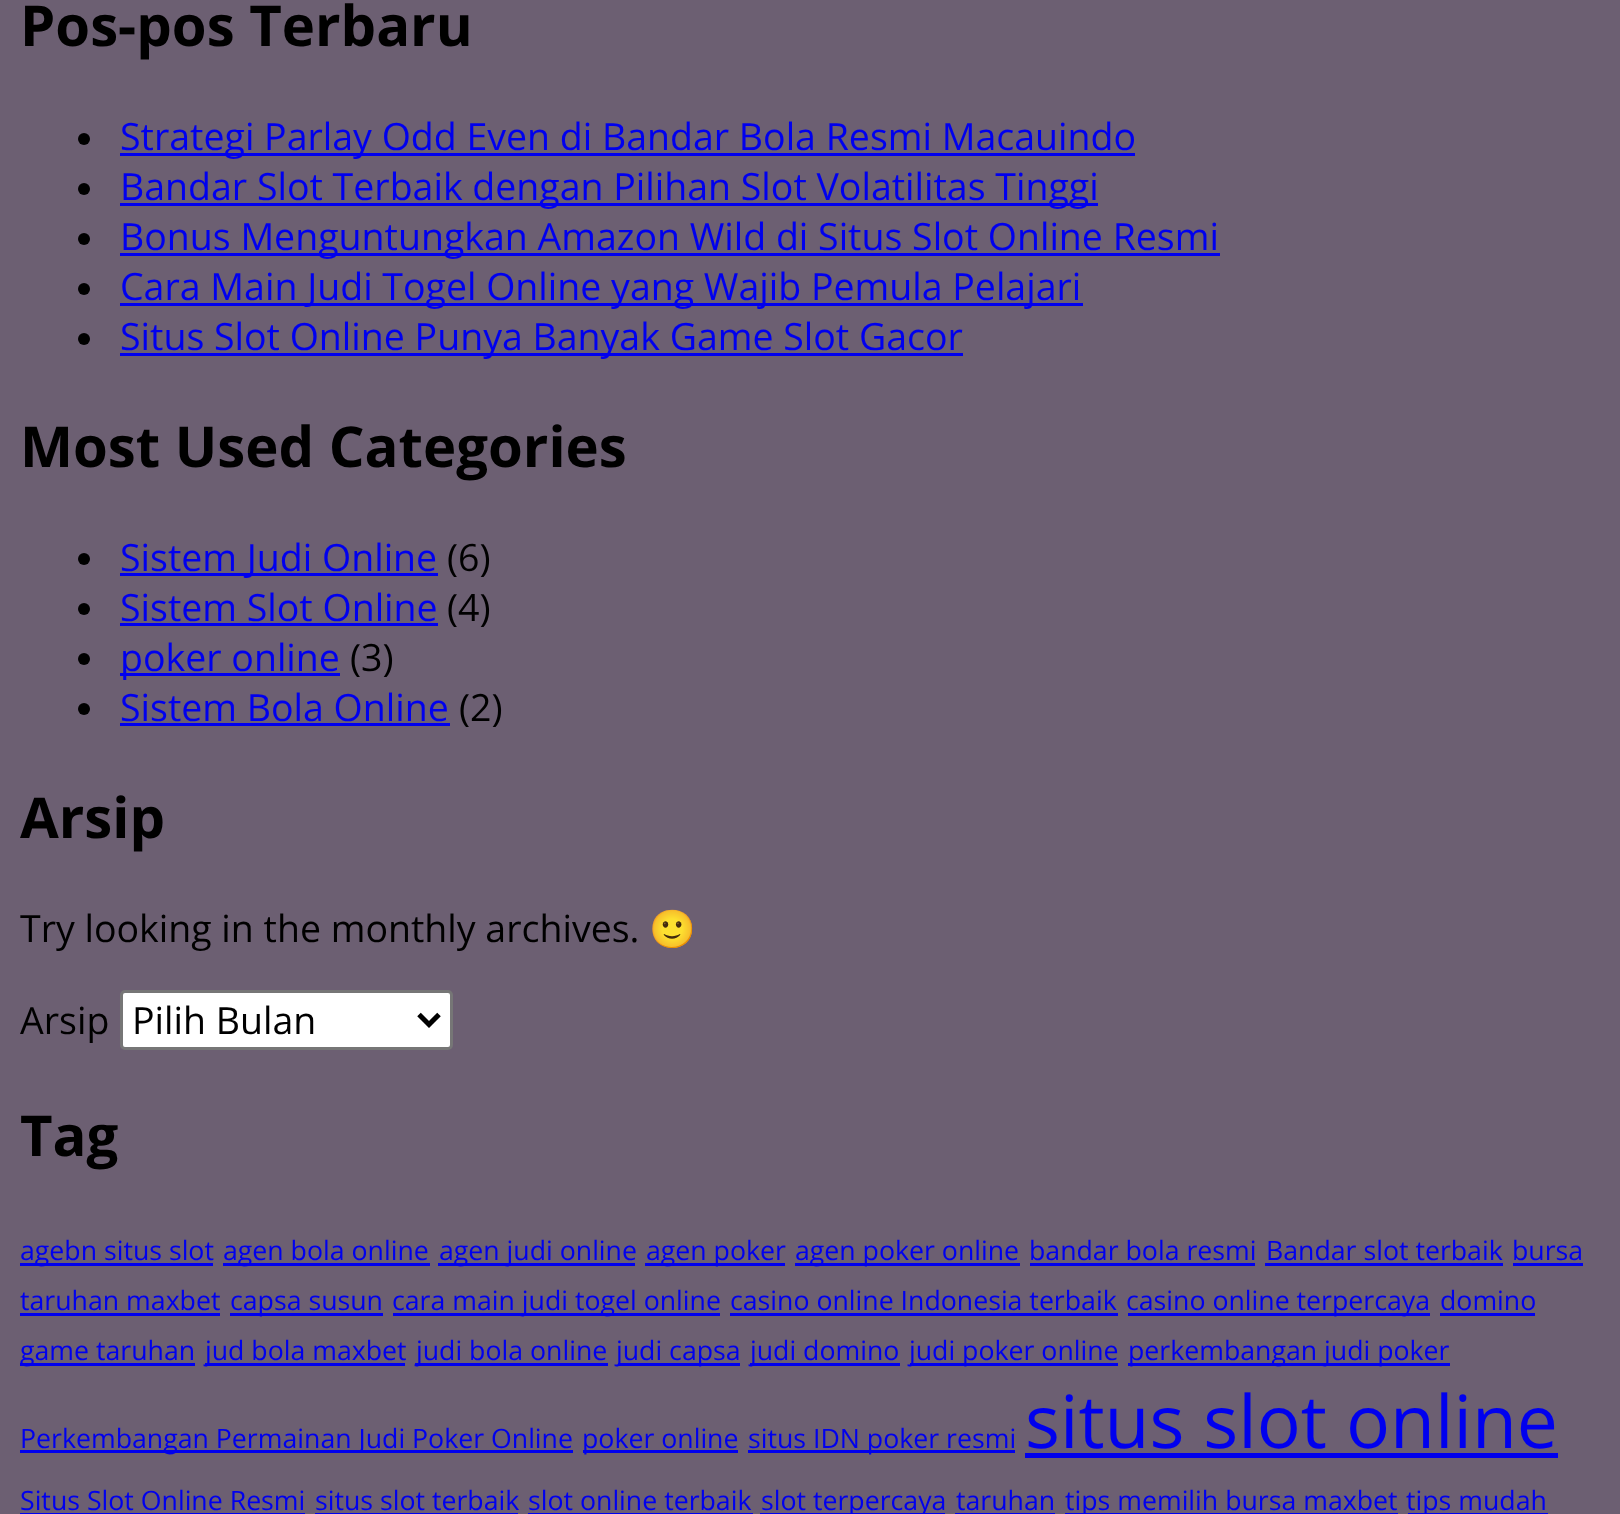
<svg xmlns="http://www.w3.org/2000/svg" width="1620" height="1514">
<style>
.a{font:bold 56.25px Open Sans;fill:#000}
.b{font:37.5px Open Sans;fill:#00e}
.c{font:37.5px Open Sans;fill:#000}
.d{font:37.5px Noto Color Emoji;fill:#000}
.e{font:26.7px Open Sans;fill:#00e}
.f{font:73.25px Open Sans;fill:#00e}
</style>
<rect width="100%" height="100%" fill="#6c5f72"/>
<circle fill="#000" cx="84" cy="139" r="6"/>
<path fill="#00e" d="M120 153h1015v3H120z"/>
<circle fill="#000" cx="84" cy="189" r="6"/>
<path fill="#00e" d="M120 203h978v3H120z"/>
<circle fill="#000" cx="84" cy="239" r="6"/>
<path fill="#00e" d="M120 253h1100v3H120z"/>
<circle fill="#000" cx="84" cy="289" r="6"/>
<path fill="#00e" d="M120 303h963v3H120z"/>
<circle fill="#000" cx="84" cy="339" r="6"/>
<path fill="#00e" d="M120 353h843v3H120z"/>
<circle fill="#000" cx="84" cy="559" r="6"/>
<path fill="#00e" d="M120 573h318v3H120z"/>
<circle fill="#000" cx="84" cy="609" r="6"/>
<path fill="#00e" d="M120 623h318v3H120z"/>
<circle fill="#000" cx="84" cy="659" r="6"/>
<path fill="#00e" d="M120 673h220v3H120z"/>
<circle fill="#000" cx="84" cy="709" r="6"/>
<path fill="#00e" d="M120 723h330v3H120z"/>
<rect fill="#fff" stroke="#767676" stroke-width="3" x="121.5" y="991.5" width="330" height="57" rx="3.5"/>
<path fill="none" stroke="#000" stroke-width="5" d="M419 1014.5l10 10l10-10"/>
<path fill="#00e" d="M20 1263h193v3H20z"/>
<path fill="#00e" d="M223 1263h207v3H223z"/>
<path fill="#00e" d="M438 1263h197v3H438z"/>
<path fill="#00e" d="M645 1263h140v3H645z"/>
<path fill="#00e" d="M795 1263h225v3H795z"/>
<path fill="#00e" d="M1030 1263h225v3H1030z"/>
<path fill="#00e" d="M1265 1263h238v3H1265z"/>
<path fill="#00e" d="M1513 1263h70v3H1513z"/>
<path fill="#00e" d="M20 1313h200v3H20z"/>
<path fill="#00e" d="M230 1313h153v3H230z"/>
<path fill="#00e" d="M393 1313h327v3H393z"/>
<path fill="#00e" d="M730 1313h388v3H730z"/>
<path fill="#00e" d="M1128 1313h302v3H1128z"/>
<path fill="#00e" d="M1440 1313h95v3H1440z"/>
<path fill="#00e" d="M20 1363h175v3H20z"/>
<path fill="#00e" d="M205 1363h200v3H205z"/>
<path fill="#00e" d="M415 1363h193v3H415z"/>
<path fill="#00e" d="M618 1363h122v3H618z"/>
<path fill="#00e" d="M750 1363h150v3H750z"/>
<path fill="#00e" d="M910 1363h208v3H910z"/>
<path fill="#00e" d="M1128 1363h322v3H1128z"/>
<path fill="#00e" d="M20 1450h553v3H20z"/>
<path fill="#00e" d="M583 1450h155v3H583z"/>
<path fill="#00e" d="M748 1450h267v3H748z"/>
<path fill="#00e" d="M1025 1453h533v5H1025z"/>
<path fill="#00e" d="M20 1513h285v1H20z"/>
<path fill="#00e" d="M315 1513h203v1H315z"/>
<path fill="#00e" d="M528 1513h225v1H528z"/>
<path fill="#00e" d="M760 1513h185v1H760z"/>
<path fill="#00e" d="M955 1513h100v1H955z"/>
<path fill="#00e" d="M1065 1513h333v1H1065z"/>
<path fill="#00e" d="M1408 1513h140v1H1408z"/>
<text class="a" x="20" y="46">Pos-pos Terbaru</text>
<text class="b" x="120" y="150">Strategi Parlay Odd Even di Bandar Bola Resmi Macauindo</text>
<text class="b" x="120" y="200">Bandar Slot Terbaik dengan Pilihan Slot Volatilitas Tinggi</text>
<text class="b" x="120" y="250">Bonus Menguntungkan Amazon Wild di Situs Slot Online Resmi</text>
<text class="b" x="120" y="300">Cara Main Judi Togel Online yang Wajib Pemula Pelajari</text>
<text class="b" x="120" y="350">Situs Slot Online Punya Banyak Game Slot Gacor</text>
<text class="a" x="20" y="467">Most Used Categories</text>
<text class="b" x="120" y="571">Sistem Judi Online</text>
<text class="c" x="447" y="571">(6)</text>
<text class="b" x="120" y="621">Sistem Slot Online</text>
<text class="c" x="447" y="621">(4)</text>
<text class="b" x="120" y="671">poker online</text>
<text class="c" x="350" y="671">(3)</text>
<text class="b" x="120" y="721">Sistem Bola Online</text>
<text class="c" x="459" y="721">(2)</text>
<text class="a" x="20" y="838">Arsip</text>
<text class="c" x="20" y="942">Try looking in the monthly archives.</text>
<text class="d" x="649" y="942">🙂</text>
<text class="c" x="20" y="1034">Arsip</text>
<text class="c" x="132" y="1034">Pilih Bulan</text>
<text class="a" x="20" y="1156">Tag</text>
<text class="e" x="20" y="1260">agebn situs slot</text>
<text class="e" x="223" y="1260">agen bola online</text>
<text class="e" x="439" y="1260">agen judi online</text>
<text class="e" x="646" y="1260">agen poker</text>
<text class="e" x="795" y="1260">agen poker online</text>
<text class="e" x="1029" y="1260">bandar bola resmi</text>
<text class="e" x="1266" y="1260">Bandar slot terbaik</text>
<text class="e" x="1512" y="1260">bursa</text>
<text class="e" x="20" y="1310">taruhan maxbet</text>
<text class="e" x="230" y="1310">capsa susun</text>
<text class="e" x="392" y="1310">cara main judi togel online</text>
<text class="e" x="730" y="1310">casino online Indonesia terbaik</text>
<text class="e" x="1126" y="1310">casino online terpercaya</text>
<text class="e" x="1440" y="1310">domino</text>
<text class="e" x="20" y="1360">game taruhan</text>
<text class="e" x="205" y="1360">jud bola maxbet</text>
<text class="e" x="416" y="1360">judi bola online</text>
<text class="e" x="616" y="1360">judi capsa</text>
<text class="e" x="750" y="1360">judi domino</text>
<text class="e" x="909" y="1360">judi poker online</text>
<text class="e" x="1128" y="1360">perkembangan judi poker</text>
<text class="e" x="20" y="1448">Perkembangan Permainan Judi Poker Online</text>
<text class="e" x="582" y="1448">poker online</text>
<text class="e" x="748" y="1448">situs IDN poker resmi</text>
<text class="f" x="1025" y="1448">situs slot online</text>
<text class="e" x="20" y="1510">Situs Slot Online Resmi</text>
<text class="e" x="315" y="1510">situs slot terbaik</text>
<text class="e" x="528" y="1510">slot online terbaik</text>
<text class="e" x="761" y="1510">slot terpercaya</text>
<text class="e" x="956" y="1510">taruhan</text>
<text class="e" x="1065" y="1510">tips memilih bursa maxbet</text>
<text class="e" x="1406" y="1510">tips mudah</text>
</svg>
